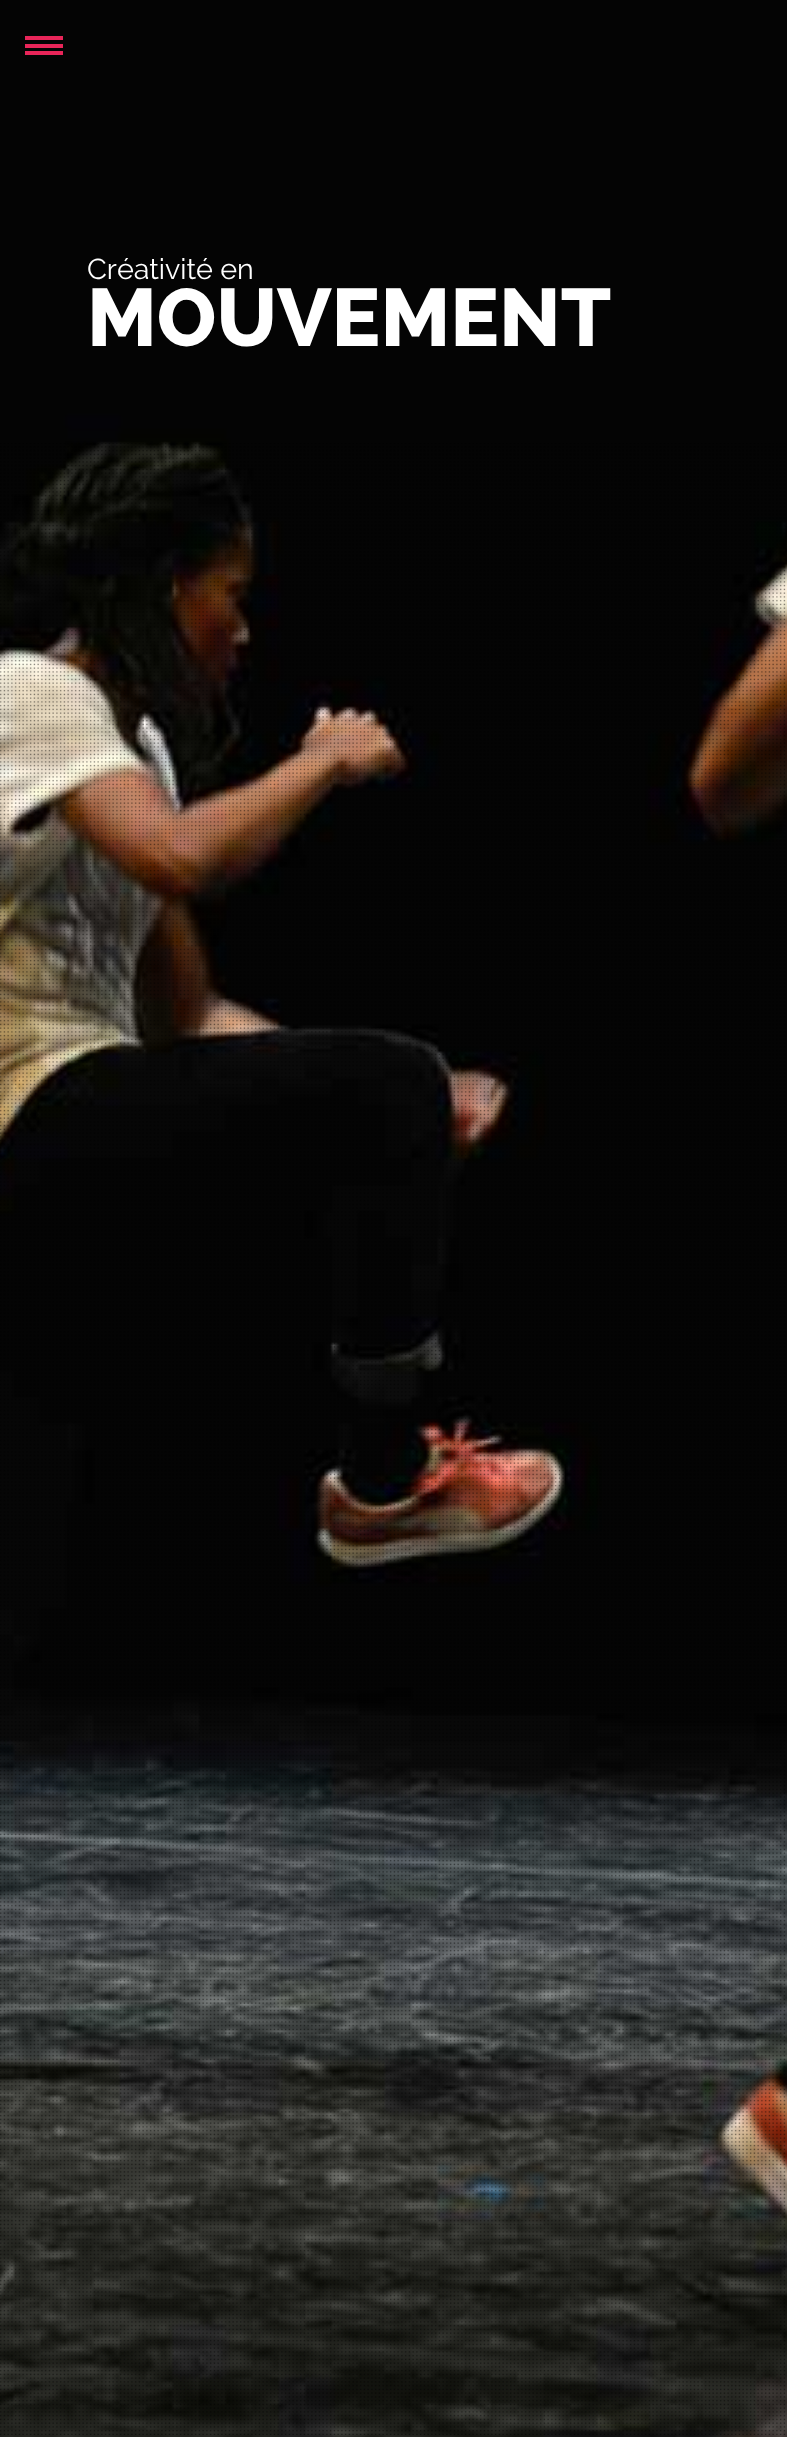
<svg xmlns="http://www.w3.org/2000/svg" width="787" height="2437">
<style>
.a{font:28.75px Raleway;fill:#fff}
.b{font:800 81.25px Raleway;fill:#fff}
</style>
<rect width="100%" height="100%" fill="#fff"/>
<image href="1.png" x="0" y="0" width="787" height="2437"/>
<path fill="#e82559" d="M25 44h38v4H25z"/>
<path fill="#e82559" d="M25 36h38v4H25z"/>
<path fill="#e82559" d="M25 51h38v4H25z"/>
<image href="2.png" x="0" y="443" width="786" height="1992"/>
<text class="a" x="87" y="279">Créativité en</text>
<text class="b" x="87" y="346">MOUVEMENT</text>
</svg>
